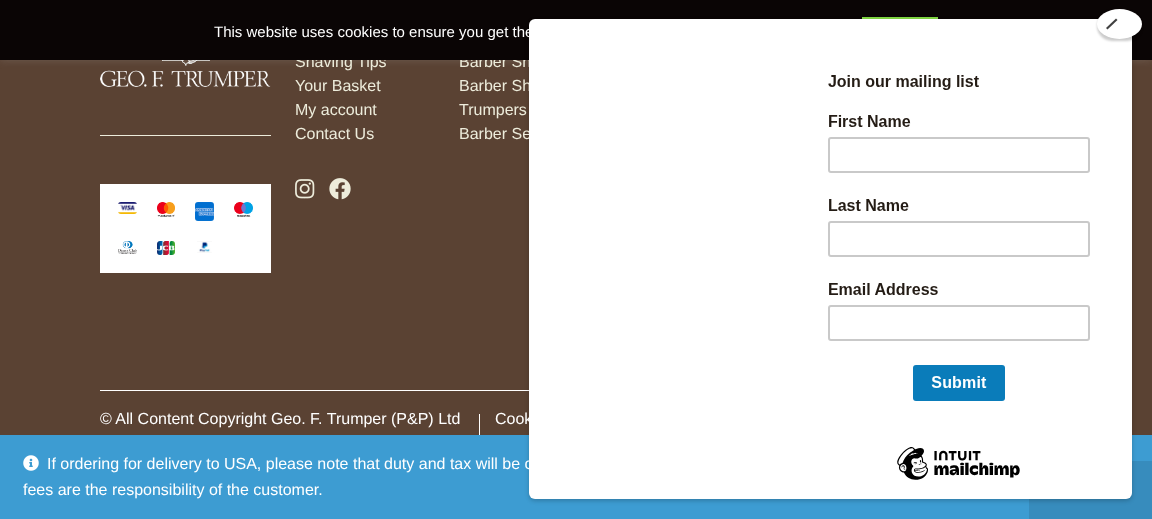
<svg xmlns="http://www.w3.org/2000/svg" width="1152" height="519">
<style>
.a{font:16px Liberation Sans;fill:#edecdb}
.b{font:15px Liberation Sans;fill:#fff}
.c{font:16px Liberation Sans;fill:#fff}
</style>
<rect width="100%" height="100%" fill="#5a4233"/>
<image href="2.png" x="100" y="60" width="171" height="27"/>
<path fill="#acabab4d" filter="blur(5px)" d="M0 -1h1152v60H0z"/>
<path fill="#edecdb" d="M100 135h171v1H100z"/>
<path fill="#fff" d="M100 184h171v89H100z"/>
<image href="3.png" x="118" y="202" width="19" height="12"/>
<image href="4.png" x="157" y="202" width="18" height="15"/>
<image href="5.png" x="195" y="202" width="19" height="19"/>
<image href="6.png" x="234" y="202" width="19" height="15"/>
<image href="7.png" x="118" y="241" width="19" height="13"/>
<image href="8.png" x="157" y="241" width="18" height="14"/>
<image href="9.png" x="197" y="241" width="15" height="12"/>
<image href="10.png" x="295" y="179" width="20" height="20"/>
<image href="11.png" x="329" y="178" width="22" height="22"/>
<path fill="#fff" d="M100 390h429v1H100z"/>
<path fill="#fff" d="M479 414h1v21H479z"/>
<path fill="#3d9cd2" d="M0 435h1152v84H0z"/>
<image href="12.png" x="23" y="455" width="16" height="16"/>
<path fill="#378cbd" d="M1029 461h123v58H1029z"/>
<text class="a" x="295" y="67">Shaving Tips</text>
<text class="a" x="295" y="91">Your Basket</text>
<text class="a" x="295" y="115">My account</text>
<text class="a" x="295" y="139">Contact Us</text>
<text class="a" x="459" y="67">Barber Sh</text>
<path fill="#0a0505" d="M0 0h1152v60H0z"/>
<path fill="#81d742" d="M862 17h76v2H862z"/>
<rect fill="#00000033" filter="blur(2px)" x="529" y="21" width="603" height="480" rx="6"/>
<text class="b" x="214" y="37">This website uses cookies to ensure you get the</text>
<text class="a" x="459" y="91">Barber Sh</text>
<text class="a" x="459" y="115">Trumpers</text>
<text class="a" x="459" y="139">Barber Se</text>
<text class="c" x="100" y="424">© All Content Copyright Geo. F. Trumper (P&amp;P) Ltd</text>
<text class="c" x="495" y="424">Cook</text>
<text class="c" x="47" y="469">If ordering for delivery to USA, please note that duty and tax will be c</text>
<image href="1.png" x="529" y="19" width="603" height="480"/>
<rect fill="#00000033" filter="blur(1px)" x="1097" y="11" width="45" height="30" rx="15"/>
<ellipse fill="#fff" cx="1119.5" cy="24" rx="22.5" ry="15"/>
<path fill="#414141" d="M1116 18.5l1.5 1.5l-10 9.5l-1.5-1.5z"/>
<text class="c" x="23" y="495">fees are the responsibility of the customer.</text>
</svg>
